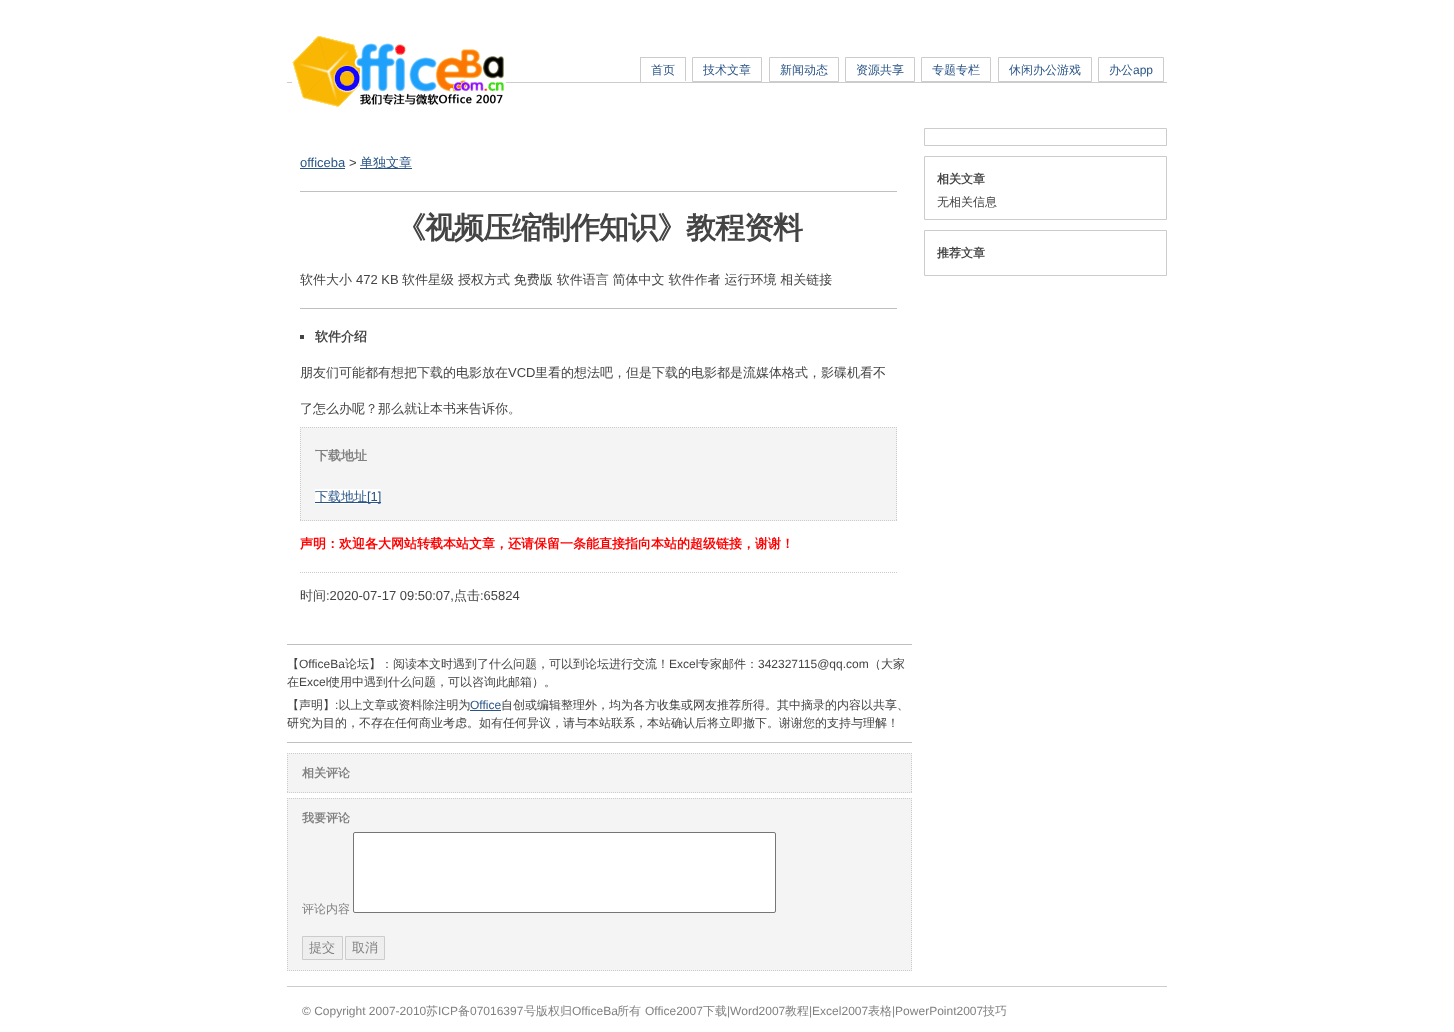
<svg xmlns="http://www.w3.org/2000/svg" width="1454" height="1032">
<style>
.a{font:500 12px WenQuanYi Zen Hei;fill:#295487}
.b{font:12px Liberation Sans;fill:#295487}
.c{font:13px Liberation Sans;fill:#295487}
.d{font:13px Liberation Sans;fill:#444}
.e{font:500 13px WenQuanYi Zen Hei;fill:#295487}
.f{font:bold 30px WenQuanYi Zen Hei;letter-spacing:-1px;fill:#444}
.g{font:500 13px WenQuanYi Zen Hei;fill:#444}
.h{font:bold 13px WenQuanYi Zen Hei;fill:#444}
.i{font:bold 13px WenQuanYi Zen Hei;fill:#808080}
.j{font:bold 13px WenQuanYi Zen Hei;fill:#f00}
.k{font:500 12px WenQuanYi Zen Hei;fill:#444}
.l{font:12px Liberation Sans;fill:#444}
.m{font:bold 12px WenQuanYi Zen Hei;fill:#808080}
.n{font:500 12px WenQuanYi Zen Hei;fill:#808080}
.o{font:500 13px WenQuanYi Zen Hei;fill:#808080}
.p{font:bold 12px WenQuanYi Zen Hei;fill:#444}
.q{font:12px Liberation Sans;fill:#808080}
</style>
<rect width="100%" height="100%" fill="#fff"/>
<path fill="#ccc" d="M287 82h880v1H287z"/>
<path fill="#fff" d="M292 82h214v1H292z"/>
<image href="1.png" x="292" y="36" width="212" height="71"/>
<path fill="#ccc" d="M640 57h46v1H640z"/>
<path fill="#ccc" d="M685 57h1v25H685z"/>
<path fill="#fff" d="M685 81h1v1H685z"/>
<path fill="#ccc" d="M640 57h1v25H640z"/>
<path fill="none" stroke="#ccc" d="M692.5 57.5h69v24H692.5z"/>
<path fill="none" stroke="#ccc" d="M769.5 57.5h69v24H769.5z"/>
<path fill="none" stroke="#ccc" d="M845.5 57.5h69v24H845.5z"/>
<path fill="none" stroke="#ccc" d="M921.5 57.5h69v24H921.5z"/>
<path fill="none" stroke="#ccc" d="M998.5 57.5h93v24H998.5z"/>
<path fill="none" stroke="#ccc" d="M1098.5 57.5h65v24H1098.5z"/>
<path fill="#295487" d="M300 168h45v1H300z"/>
<path fill="#295487" d="M360 168h52v1H360z"/>
<path fill="#c0c0c0" d="M300 191h597v1H300z"/>
<path fill="#c0c0c0" d="M300 308h597v1H300z"/>
<path fill="#444" d="M300 335h4v4H300z"/>
<path fill="#f4f4f4" d="M300 427h597v94H300z"/>
<path fill="none" stroke="#ccc" stroke-dasharray="1 1" d="M300 427.5h597"/>
<path fill="none" stroke="#ccc" stroke-dasharray="1 1" d="M896.5 427v94"/>
<path fill="none" stroke="#ccc" stroke-dasharray="1 1" d="M300 520.5h597"/>
<path fill="none" stroke="#ccc" stroke-dasharray="1 1" d="M300.5 427v94"/>
<path fill="#fff" d="M315 489h66v15H315z"/>
<path fill="#295487" d="M315 502h66v1H315z"/>
<path fill="none" stroke="#ccc" stroke-dasharray="1 1" d="M300 572.5h597"/>
<path fill="#c0c0c0" d="M287 644h625v1H287z"/>
<path fill="#295487" d="M470 710h31v1H470z"/>
<path fill="#c0c0c0" d="M287 742h625v1H287z"/>
<path fill="#f4f4f4" d="M287 753h625v40H287z"/>
<path fill="none" stroke="#ccc" stroke-dasharray="1 1" d="M287 753.5h625"/>
<path fill="none" stroke="#ccc" stroke-dasharray="1 1" d="M911.5 753v40"/>
<path fill="none" stroke="#ccc" stroke-dasharray="1 1" d="M287 792.5h625"/>
<path fill="none" stroke="#ccc" stroke-dasharray="1 1" d="M287.5 753v40"/>
<path fill="#f4f4f4" d="M287 798h625v173H287z"/>
<path fill="none" stroke="#ccc" stroke-dasharray="1 1" d="M287 798.5h625"/>
<path fill="none" stroke="#ccc" stroke-dasharray="1 1" d="M911.5 798v173"/>
<path fill="none" stroke="#ccc" stroke-dasharray="1 1" d="M287 970.5h625"/>
<path fill="none" stroke="#ccc" stroke-dasharray="1 1" d="M287.5 798v173"/>
<rect fill="#fff" stroke="#767676" x="353.5" y="832.5" width="422" height="80" rx="1.5"/>
<path fill="#eee" stroke="#ccc" d="M302.5 936.5h40v23H302.5z"/>
<path fill="#eee" stroke="#ccc" d="M345.5 936.5h39v23H345.5z"/>
<path fill="none" stroke="#ccc" d="M924.5 128.5h242v17H924.5z"/>
<path fill="none" stroke="#ccc" d="M924.5 156.5h242v63H924.5z"/>
<path fill="none" stroke="#ccc" d="M924.5 230.5h242v45H924.5z"/>
<path fill="#ccc" d="M287 986h880v1H287z"/>
<text class="a" x="651" y="74">首页</text>
<text class="a" x="703" y="74">技术文章</text>
<text class="a" x="780" y="74">新闻动态</text>
<text class="a" x="856" y="74">资源共享</text>
<text class="a" x="932" y="74">专题专栏</text>
<text class="a" x="1009" y="74">休闲办公游戏</text>
<text class="a" x="1109" y="74">办公</text>
<text class="b" x="1133" y="74">app</text>
<text class="c" x="300" y="167">officeba</text>
<text class="d" x="349" y="167">&gt;</text>
<text class="e" x="360" y="167">单独文章</text>
<text class="f" x="396" y="238">《视频压缩制作知识》教程资料</text>
<text class="g" x="300" y="284">软件大小</text>
<text class="d" x="356" y="284">472 KB</text>
<text class="g" x="402" y="284">软件星级 授权方式 免费版 软件语言 简体中文 软件作者 运行环境 相关链接</text>
<text class="h" x="315" y="341">软件介绍</text>
<text class="g" x="300" y="377">朋友们可能都有想把下载的电影放在</text>
<text class="d" x="508" y="377">VCD</text>
<text class="g" x="535" y="377">里看的想法吧，但是下载的电影都是流媒体格式，影碟机看不</text>
<text class="g" x="300" y="413">了怎么办呢？那么就让本书来告诉你。</text>
<text class="i" x="315" y="460">下载地址</text>
<text class="e" x="315" y="501">下载地址</text>
<text class="c" x="367" y="501">[1]</text>
<text class="j" x="300" y="548">声明：欢迎各大网站转载本站文章，还请保留一条能直接指向本站的超级链接，谢谢！</text>
<text class="g" x="300" y="600">时间</text>
<text class="d" x="326" y="600">:2020-07-17 09:50:07,</text>
<text class="g" x="454" y="600">点击</text>
<text class="d" x="480" y="600">:65824</text>
<text class="k" x="287" y="668">【</text>
<text class="l" x="299" y="668">OfficeBa</text>
<text class="k" x="345" y="668">论坛】：阅读本文时遇到了什么问题，可以到论坛进行交流！</text>
<text class="l" x="669" y="668">Excel</text>
<text class="k" x="698" y="668">专家邮件：</text>
<text class="l" x="758" y="668">342327115@qq.com</text>
<text class="k" x="869" y="668">（大家</text>
<text class="k" x="287" y="686">在</text>
<text class="l" x="299" y="686">Excel</text>
<text class="k" x="328" y="686">使用中遇到什么问题，可以咨询此邮箱）。</text>
<text class="k" x="287" y="709">【声明】 以上文章或资料除注明为</text>
<text class="b" x="470" y="709">Office</text>
<text class="k" x="501" y="709">自创或编辑整理外，均为各方收集或网友推荐所得。其中摘录的内容以共享、</text>
<text class="l" x="335" y="709">:</text>
<text class="k" x="287" y="727">研究为目的，不存在任何商业考虑。如有任何异议，请与本站联系，本站确认后将立即撤下。谢谢您的支持与理解！</text>
<text class="m" x="302" y="777">相关评论</text>
<text class="m" x="302" y="822">我要评论</text>
<text class="n" x="302" y="913">评论内容</text>
<text class="o" x="309" y="952">提交</text>
<text class="o" x="352" y="952">取消</text>
<text class="p" x="937" y="183">相关文章</text>
<text class="k" x="937" y="206">无相关信息</text>
<text class="p" x="937" y="257">推荐文章</text>
<text class="q" x="302" y="1015">© Copyright 2007-2010</text>
<text class="n" x="426" y="1015">苏</text>
<text class="q" x="438" y="1015">ICP</text>
<text class="n" x="458" y="1015">备</text>
<text class="q" x="470" y="1015">07016397</text>
<text class="n" x="524" y="1015">号版权归</text>
<text class="q" x="572" y="1015">OfficeBa</text>
<text class="n" x="617" y="1015">所有</text>
<text class="q" x="645" y="1015">Office2007</text>
<text class="n" x="703" y="1015">下载</text>
<text class="q" x="727" y="1015">|Word2007</text>
<text class="n" x="785" y="1015">教程</text>
<text class="q" x="809" y="1015">|Excel2007</text>
<text class="n" x="868" y="1015">表格</text>
<text class="q" x="892" y="1015">|PowerPoint2007</text>
<text class="n" x="983" y="1015">技巧</text>
</svg>
